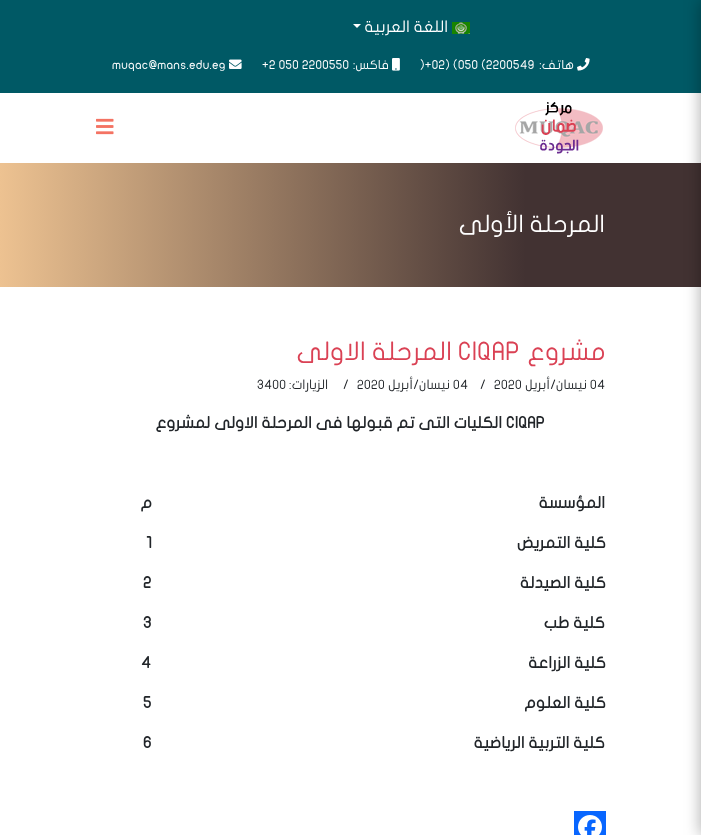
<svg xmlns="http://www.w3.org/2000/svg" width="701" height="835">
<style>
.a{font:16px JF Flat;direction:rtl;fill:#fff}
.b{font:12.5px JF Flat;direction:rtl;fill:#fff}
.c{font:12.5px JF Flat;fill:#fff}
.d{font:24px JF Flat;direction:rtl;fill:#fff}
.e{font:25.5px JF Flat;direction:rtl;fill:#da4154}
.f{font:25.5px JF Flat;fill:#da4154}
.g{font:13px JF Flat;fill:#212529}
.h{font:13px JF Flat;direction:rtl;fill:#212529}
.i{font:bold 16px JF Flat;fill:#212529}
.j{font:bold 16px JF Flat;direction:rtl;fill:#212529}
</style>
<defs>
<linearGradient id="g1" gradientUnits="userSpaceOnUse" x1="701" y1="225" x2="0" y2="225"><stop offset="0.25" stop-color="#423232"/><stop offset="1" stop-color="#edc291"/></linearGradient>
</defs>
<rect width="100%" height="100%" fill="#fff"/>
<path fill="#005965" d="M0 0h701v93H0z"/>
<path fill="url(#g1)" d="M0 163h701v124H0z"/>
<path fill="#0000004d" filter="blur(7.5px)" d="M700 0h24v835H700z"/>
<image href="1.png" x="452" y="22" width="18" height="12"/>
<path fill="#fff" d="M353 24h8l-4 4z"/>
<image href="2.png" x="577" y="58" width="13" height="13"/>
<image href="3.png" x="392" y="58" width="8" height="13"/>
<image href="4.png" x="229" y="59" width="13" height="10"/>
<image href="5.png" x="515" y="102" width="88" height="52"/>
<image href="6.png" x="96" y="118" width="18" height="17"/>
<path fill="#0866ff" d="M574 811h32v24H574z"/>
<image href="7.png" x="578" y="815" width="24" height="20"/>
<text class="a" x="448" y="32">اللغة العربية</text>
<text class="b" x="574" y="69">هاتف:</text>
<text class="c" x="420" y="69">)+02) (050 (2200549</text>
<text class="b" x="389" y="69">فاكس:</text>
<text class="c" x="262" y="69">+2 050 2200550</text>
<text class="c" x="112" y="69">muqac@mans.edu.eg</text>
<text class="d" x="605" y="232">المرحلة الأولى</text>
<text class="e" x="606" y="360">مشروع</text>
<text class="f" x="458" y="360">CIQAP</text>
<text class="e" x="452" y="360">المرحلة الاولى</text>
<text class="g" x="590" y="389">04</text>
<text class="h" x="587" y="389">نيسان/أبريل</text>
<text class="g" x="494" y="389">2020</text>
<text class="g" x="480" y="389">/</text>
<text class="g" x="453" y="389">04</text>
<text class="h" x="450" y="389">نيسان/أبريل</text>
<text class="g" x="357" y="389">2020</text>
<text class="g" x="343" y="389">/</text>
<text class="h" x="328" y="389">الزيارات:</text>
<text class="g" x="257" y="389">3400</text>
<text class="i" x="506" y="428">CIQAP</text>
<text class="j" x="502" y="428">الكليات التى تم قبولها فى المرحلة الاولى لمشروع</text>
<text class="j" x="605" y="508">المؤسسة</text>
<text class="j" x="152" y="508">م</text>
<text class="j" x="606" y="548">كلية التمريض</text>
<text class="i" x="146" y="548">1</text>
<text class="j" x="606" y="588">كلية الصيدلة</text>
<text class="i" x="143" y="588">2</text>
<text class="j" x="605" y="628">كلية طب</text>
<text class="i" x="143" y="628">3</text>
<text class="j" x="606" y="668">كلية الزراعة</text>
<text class="i" x="141" y="668">4</text>
<text class="j" x="606" y="708">كلية العلوم</text>
<text class="i" x="143" y="708">5</text>
<text class="j" x="605" y="748">كلية التربية الرياضية</text>
<text class="i" x="143" y="748">6</text>
</svg>
